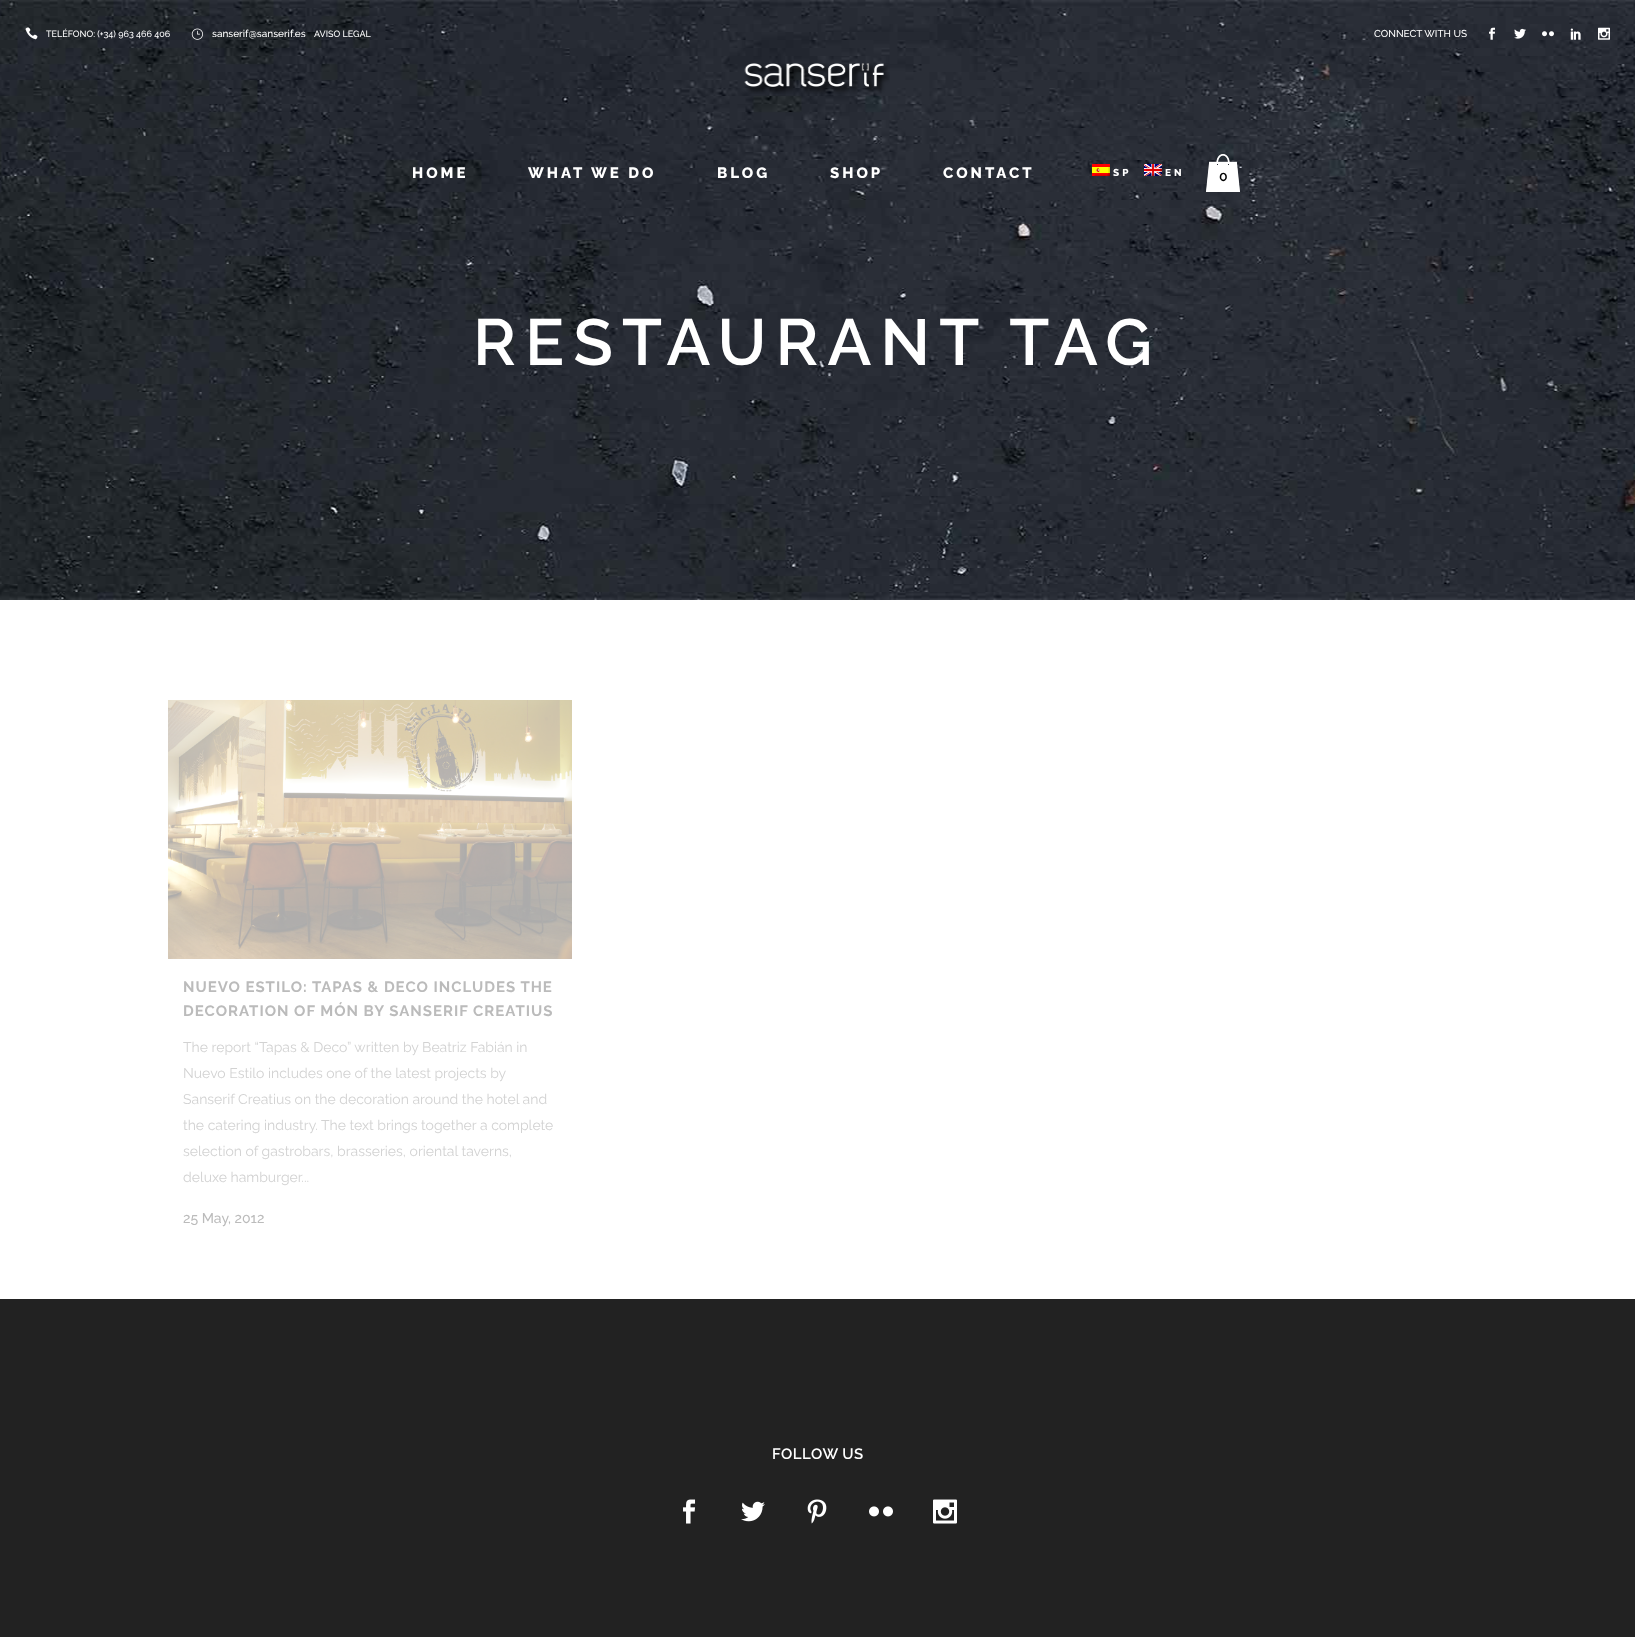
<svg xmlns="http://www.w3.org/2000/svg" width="1635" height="1637">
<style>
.a{font:500 9px Raleway;fill:#fff}
.b{font:500 10px Raleway;fill:#fff}
.c{font:800 15px Raleway;letter-spacing:3px;fill:#fff}
.d{font:800 10px Raleway;letter-spacing:3px;fill:#fff}
.e{font:600 14px Raleway;fill:#000}
.f{font:600 65px Raleway;letter-spacing:9px;fill:#fff}
.g{font:bold 15px Raleway;letter-spacing:1px;fill:#bbb}
.h{font:14px Raleway;fill:#d2d2d2}
.i{font:500 14px Raleway;fill:#bbb}
.j{font:600 15px Raleway;letter-spacing:0.5px;fill:#fff}
</style>
<rect width="100%" height="100%" fill="#fff"/>
<image href="12.png" x="0" y="0" width="1635" height="600"/>
<image href="1.png" x="25" y="27" width="13" height="13"/>
<image href="2.png" x="191" y="28" width="12" height="12"/>
<image href="3.png" x="1489" y="27" width="6" height="13"/>
<image href="4.png" x="1514" y="28" width="12" height="11"/>
<image href="5.png" x="1542" y="31" width="12" height="6"/>
<image href="6.png" x="1570" y="28" width="11" height="12"/>
<image href="7.png" x="1598" y="27" width="12" height="13"/>
<image href="8.png" x="744" y="63" width="146" height="31"/>
<image href="9.png" x="1092" y="164" width="18" height="12"/>
<image href="10.png" x="1144" y="164" width="18" height="12"/>
<image href="11.png" x="1206" y="154" width="34" height="38"/>
<image href="13.png" x="168" y="700" width="404" height="259"/>
<path fill="#222" d="M0 1299h1635v338H0z"/>
<image href="14.png" x="683" y="1499" width="13" height="25"/>
<image href="15.png" x="741" y="1501" width="24" height="21"/>
<image href="16.png" x="807" y="1499" width="20" height="25"/>
<image href="17.png" x="869" y="1506" width="24" height="11"/>
<image href="18.png" x="933" y="1499" width="24" height="25"/>
<text class="a" x="46" y="37">TELÉFONO: (+34) 963 466 406</text>
<text class="b" x="212" y="37">sanserif@sanserif.es</text>
<text class="a" x="314" y="37">AVISO LEGAL</text>
<text class="b" x="1374" y="37">CONNECT WITH US</text>
<text class="c" x="412" y="178">HOME</text>
<text class="c" x="528" y="178">WHAT WE DO</text>
<text class="c" x="717" y="178">BLOG</text>
<text class="c" x="830" y="178">SHOP</text>
<text class="c" x="943" y="178">CONTACT</text>
<text class="d" x="1113" y="176">SP</text>
<text class="d" x="1165" y="176">EN</text>
<text class="e" x="1219" y="181">0</text>
<text class="f" x="473" y="365">RESTAURANT TAG</text>
<text class="g" x="183" y="992">NUEVO ESTILO: TAPAS &amp; DECO INCLUDES THE</text>
<text class="g" x="183" y="1016">DECORATION OF MÓN BY SANSERIF CREATIUS</text>
<text class="h" x="183" y="1052">The report “Tapas &amp; Deco” written by Beatriz Fabián in</text>
<text class="h" x="183" y="1078">Nuevo Estilo includes one of the latest projects by</text>
<text class="h" x="183" y="1104">Sanserif Creatius on the decoration around the hotel and</text>
<text class="h" x="183" y="1130">the catering industry. The text brings together a complete</text>
<text class="h" x="183" y="1156">selection of gastrobars, brasseries, oriental taverns,</text>
<text class="h" x="183" y="1182">deluxe hamburger...</text>
<text class="i" x="183" y="1223">25 May, 2012</text>
<text class="j" x="772" y="1459">FOLLOW US</text>
</svg>
